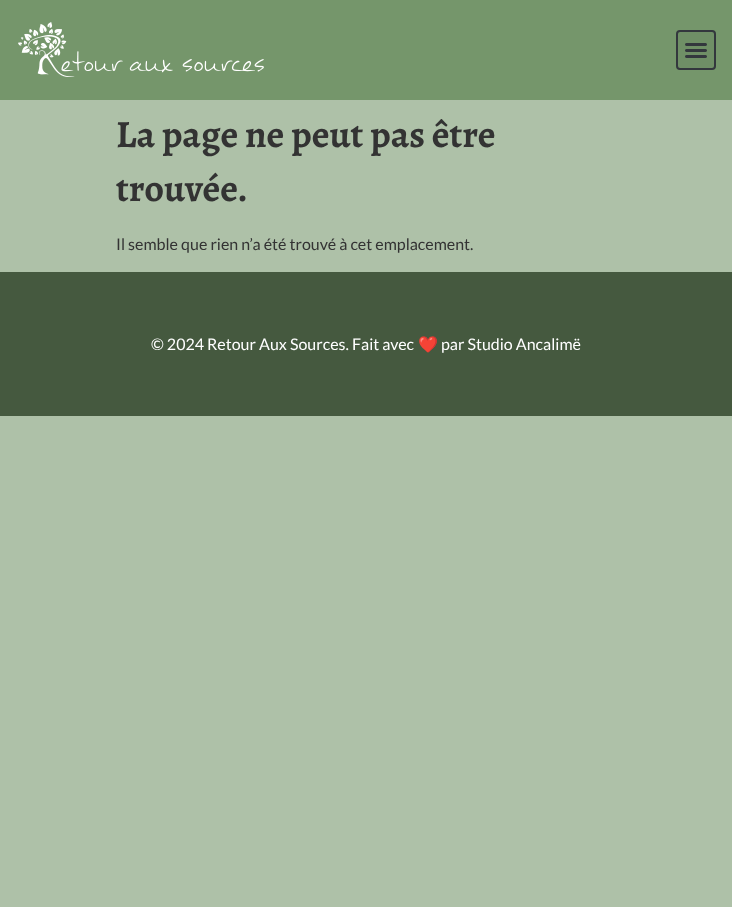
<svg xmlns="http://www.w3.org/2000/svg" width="732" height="907">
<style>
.a{font:bold 38.5px Alegreya;fill:#333}
.b{font:16px Lato;fill:#333}
.c{font:16px Lato;fill:#fff}
.d{font:16px Noto Color Emoji;fill:#fff}
</style>
<rect width="100%" height="100%" fill="#aec1a8"/>
<path fill="#75966b" d="M0 0h732v100H0z"/>
<image href="1.png" x="18" y="22" width="246" height="55"/>
<rect fill="#6f8f66" stroke="#33373d" stroke-width="2" x="677" y="31" width="38" height="38" rx="3"/>
<image href="2.png" x="685" y="43" width="22" height="15"/>
<path fill="#45593f" d="M0 272h732v144H0z"/>
<text class="a" x="116" y="147">La page ne peut pas être</text>
<text class="a" x="116" y="201">trouvée.</text>
<text class="b" x="116" y="250">Il semble que rien n’a été trouvé à cet emplacement.</text>
<text class="c" x="151" y="350">© 2024 Retour Aux Sources. Fait avec</text>
<text class="d" x="418" y="350">❤️</text>
<text class="c" x="441" y="350">par Studio Ancalimë</text>
</svg>
